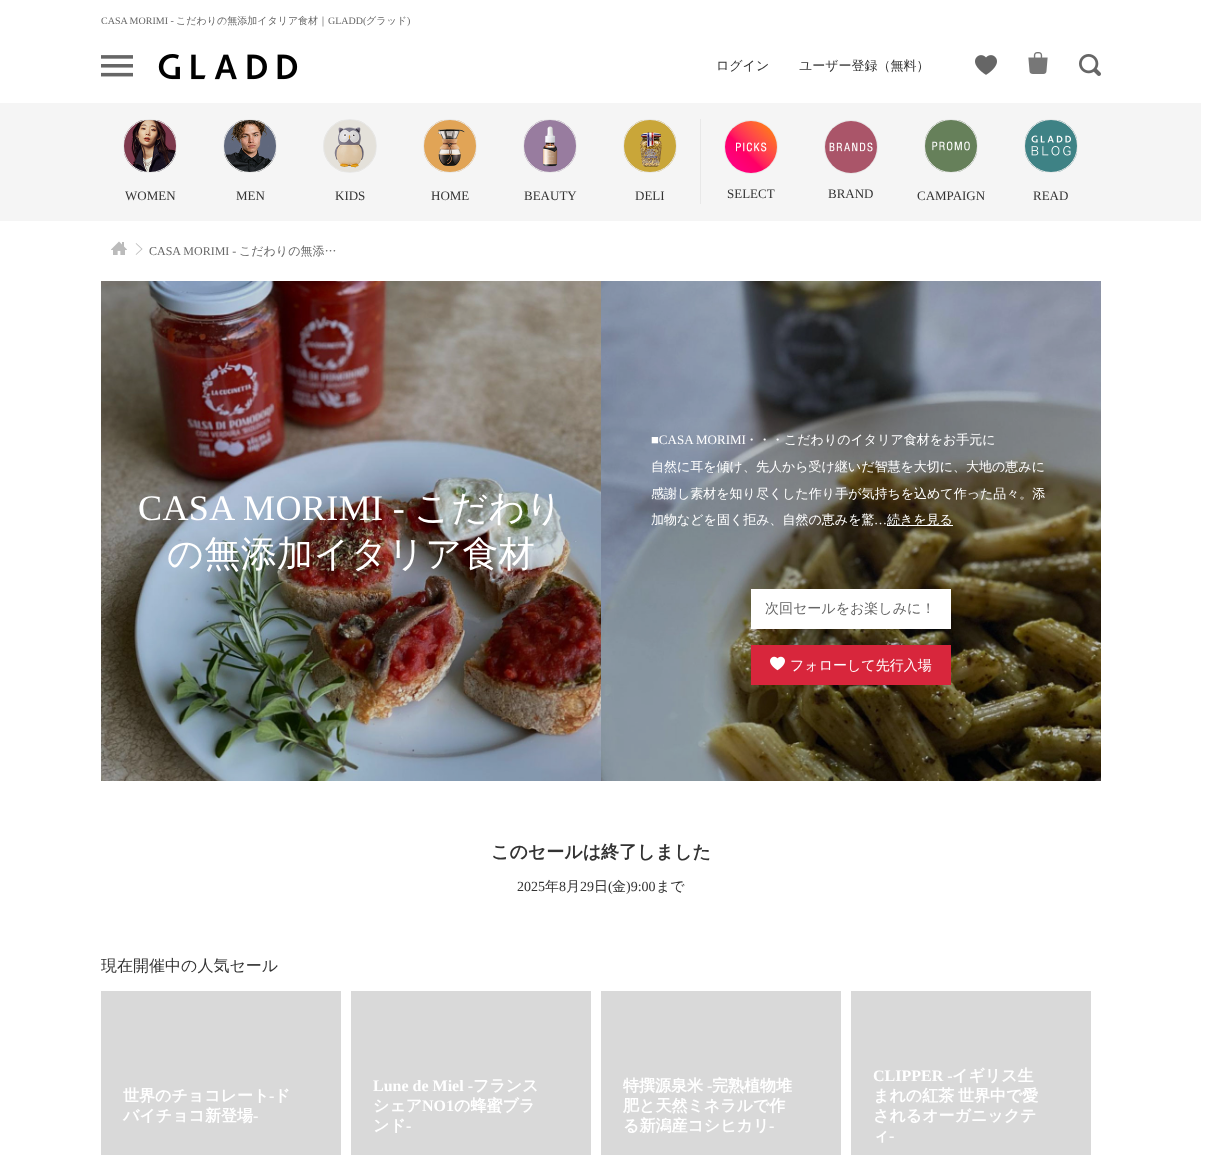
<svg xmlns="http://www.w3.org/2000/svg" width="1216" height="1155">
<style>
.a{font:10px Liberation Serif;fill:#666}
.b{font:500 10px WenQuanYi Zen Hei;fill:#666}
.c{font:500 13px WenQuanYi Zen Hei;fill:#333}
.d{font:13px Liberation Serif;fill:#333}
.e{font:12px Liberation Serif;fill:#666}
.f{font:500 12px WenQuanYi Zen Hei;fill:#666}
.g{font:36px Liberation Serif;letter-spacing:0.4px;fill:#fff}
.h{font:500 36px WenQuanYi Zen Hei;letter-spacing:0.4px;fill:#fff}
.i{font:13px Liberation Serif;fill:#fff}
.j{font:500 13px WenQuanYi Zen Hei;fill:#fff}
.k{font:500 14px WenQuanYi Zen Hei;fill:#666}
.l{font:500 14px WenQuanYi Zen Hei;fill:#fff}
.m{font:bold 18px WenQuanYi Zen Hei;fill:#333}
.n{font:14px Liberation Serif;fill:#333}
.o{font:500 14px WenQuanYi Zen Hei;fill:#333}
.p{font:500 16px WenQuanYi Zen Hei;fill:#333}
.q{font:bold 16px WenQuanYi Zen Hei;fill:#fff}
.r{font:bold 16px Liberation Serif;fill:#fff}
</style>
<defs>
<clipPath id="clip1"><path d="M101 221h1000v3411H101z"/></clipPath>
</defs>
<rect width="100%" height="100%" fill="#fff"/>
<image href="1.png" x="101" y="55" width="32" height="22"/>
<image href="2.png" x="158" y="54" width="140" height="26"/>
<image href="3.png" x="975" y="55" width="22" height="20"/>
<image href="4.png" x="1028" y="52" width="20" height="22"/>
<image href="5.png" x="1079" y="54" width="22" height="22"/>
<path fill="#f5f5f5" d="M0 103h1201v118H0z"/>
<image href="6.png" x="123" y="119" width="54" height="54"/>
<circle fill="none" stroke="#e8e8e8" cx="150" cy="146" r="26.5"/>
<image href="7.png" x="223" y="119" width="54" height="54"/>
<circle fill="none" stroke="#e8e8e8" cx="250" cy="146" r="26.5"/>
<image href="8.png" x="323" y="119" width="54" height="54"/>
<circle fill="none" stroke="#e8e8e8" cx="350" cy="146" r="26.5"/>
<image href="9.png" x="423" y="119" width="54" height="54"/>
<circle fill="none" stroke="#e8e8e8" cx="450" cy="146" r="26.5"/>
<image href="10.png" x="523" y="119" width="54" height="54"/>
<circle fill="none" stroke="#e8e8e8" cx="550" cy="146" r="26.5"/>
<path fill="#e8e8e8" d="M700 119h1v85H700z"/>
<image href="11.png" x="623" y="119" width="54" height="54"/>
<circle fill="none" stroke="#e8e8e8" cx="650" cy="146" r="26.5"/>
<circle fill="none" stroke="#e8e8e8" cx="751" cy="147" r="26.5"/>
<image href="12.png" x="725" y="121" width="52" height="52"/>
<circle fill="none" stroke="#e8e8e8" cx="851" cy="147" r="26.5"/>
<image href="13.png" x="825" y="121" width="52" height="52"/>
<image href="14.png" x="924" y="119" width="54" height="54"/>
<circle fill="none" stroke="#e8e8e8" cx="951" cy="146" r="26.5"/>
<image href="15.png" x="1024" y="119" width="54" height="54"/>
<circle fill="none" stroke="#e8e8e8" cx="1051" cy="146" r="26.5"/>
<image href="16.png" x="111" y="241" width="16" height="14"/>
<image href="17.png" x="135" y="243" width="8" height="12"/>
<image href="18.png" x="101" y="281" width="500" height="500"/>
<image href="19.png" x="601" y="281" width="500" height="500"/>
<path fill="#fff" d="M887 525h66v1H887z"/>
<path fill="#fff" d="M751 589h200v40H751z"/>
<path fill="#d8263c" d="M751 645h200v40H751z"/>
<image href="20.png" x="770" y="656" width="15" height="15"/>
<path fill="#d9d9d9" d="M101 991h240v164H101z"/>
<path fill="#d9d9d9" d="M351 991h240v164H351z"/>
<path fill="#d9d9d9" d="M601 991h240v164H601z"/>
<path fill="#d9d9d9" d="M851 991h240v164H851z"/>
<text class="a" x="101" y="24">CASA MORIMI -</text>
<text class="b" x="176" y="24">こだわりの無添加イタリア食材｜</text>
<text class="a" x="328" y="24">GLADD(</text>
<text class="b" x="366" y="24">グラッド</text>
<text class="a" x="407" y="24">)</text>
<text class="c" x="716" y="70">ログイン</text>
<text class="c" x="799" y="70">ユーザー登録（無料）</text>
<text class="d" x="125" y="200">WOMEN</text>
<text class="d" x="236" y="200">MEN</text>
<text class="d" x="335" y="200">KIDS</text>
<text class="d" x="431" y="200">HOME</text>
<text class="d" x="524" y="200">BEAUTY</text>
<text class="d" x="635" y="200">DELI</text>
<text class="d" x="727" y="198">SELECT</text>
<text class="d" x="828" y="198">BRAND</text>
<text class="d" x="917" y="200">CAMPAIGN</text>
<text class="d" x="1033" y="200">READ</text>
<text class="e" x="149" y="255">CASA MORIMI -</text>
<text class="f" x="239" y="255">こだわりの無添…</text>
<text class="g" x="138" y="520">CASA MORIMI -</text>
<text class="h" x="414" y="520">こだわり</text>
<text class="h" x="167" y="566">の無添加イタリア食材</text>
<text class="i" x="651" y="444">■CASA MORIMI</text>
<text class="j" x="745" y="444">・・・こだわりのイタリア食材をお手元に</text>
<text class="j" x="651" y="471">自然に耳を傾け、先人から受け継いだ智慧を大切に、大地の恵みに</text>
<text class="j" x="651" y="498">感謝し素材を知り尽くした作り手が気持ちを込めて作った品々。添</text>
<text class="j" x="651" y="524">加物などを固く拒み、自然の恵みを驚</text>
<text class="i" x="874" y="524">…</text>
<text class="j" x="887" y="524">続きを見る</text>
<text class="k" x="765" y="613">次回セールをお楽しみに！</text>
<text class="l" x="790" y="670">フォローして先行入場</text>
<text class="m" x="491" y="858">このセールは終了しました</text>
<text class="n" x="517" y="891">2025</text>
<text class="o" x="545" y="891">年</text>
<text class="n" x="559" y="891">8</text>
<text class="o" x="566" y="891">月</text>
<text class="n" x="580" y="891">29</text>
<text class="o" x="594" y="891">日</text>
<text class="n" x="608" y="891">(</text>
<text class="o" x="612" y="891">金</text>
<text class="n" x="626" y="891">)9:00</text>
<text class="o" x="656" y="891">まで</text>
<g clip-path="url(#clip1)">
<text class="p" x="101" y="971">現在開催中の人気セール</text>
</g>
<text class="q" x="123" y="1101">世界のチョコレート</text>
<text class="r" x="269" y="1101">-</text>
<text class="q" x="274" y="1101">ド</text>
<text class="q" x="123" y="1121">バイチョコ新登場</text>
<text class="r" x="253" y="1121">-</text>
<text class="r" x="373" y="1091">Lune de Miel -</text>
<text class="q" x="473" y="1091">フランス</text>
<text class="q" x="373" y="1111">シェア</text>
<text class="r" x="422" y="1111">NO1</text>
<text class="q" x="454" y="1111">の蜂蜜ブラ</text>
<text class="q" x="373" y="1131">ンド</text>
<text class="r" x="406" y="1131">-</text>
<text class="q" x="623" y="1091">特撰源泉米</text>
<text class="r" x="707" y="1091">-</text>
<text class="q" x="712" y="1091">完熟植物堆</text>
<text class="q" x="623" y="1111">肥と天然ミネラルで作</text>
<text class="q" x="623" y="1131">る新潟産コシヒカリ</text>
<text class="r" x="769" y="1131">-</text>
<text class="r" x="873" y="1081">CLIPPER -</text>
<text class="q" x="952" y="1081">イギリス生</text>
<text class="q" x="873" y="1101" word-spacing="-1">まれの紅茶 世界中で愛</text>
<text class="q" x="873" y="1121">されるオーガニックテ</text>
<text class="q" x="873" y="1141">ィ</text>
<text class="r" x="889" y="1141">-</text>
</svg>
